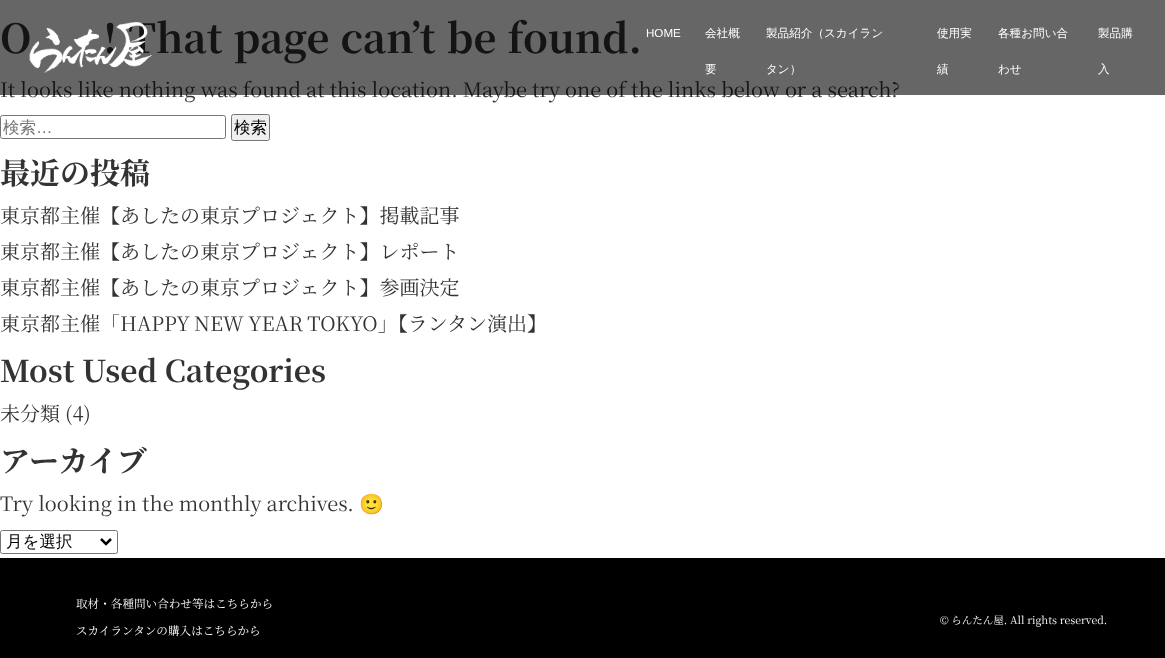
<svg xmlns="http://www.w3.org/2000/svg" width="1165" height="658">
<style>
.a{font:bold 40px Noto Serif JP;fill:#333}
.b{font:20px Noto Serif JP;fill:#333}
.c{font:500 16.5px WenQuanYi Zen Hei;fill:#757575}
.d{font:16.5px Liberation Sans;fill:#757575}
.e{font:500 16.5px WenQuanYi Zen Hei;fill:#000}
.f{font:bold 30px Noto Serif JP;fill:#333}
.g{font:20px Noto Color Emoji;fill:#333}
.h{font:11.6px Liberation Sans;fill:#fff}
.i{font:500 11.6px WenQuanYi Zen Hei;fill:#fff}
.j{font:11.6px Noto Serif JP;fill:#fff}
.k{font:10.5px Noto Serif JP;fill:#fff}
</style>
<rect width="100%" height="100%" fill="#fff"/>
<rect fill="none" stroke="#767676" x="0.5" y="115.5" width="225" height="23" rx="2"/>
<rect fill="#efefef" stroke="#767676" x="231.5" y="114.5" width="38" height="26" rx="2"/>
<rect fill="none" stroke="#767676" x="0.5" y="530.5" width="117" height="23" rx="2"/>
<path fill="none" stroke="#000" stroke-width="2.5" d="M101 539l5 5l5-5"/>
<path fill="#000" d="M0 558h1165v100H0z"/>
<text class="a" x="0" y="53" word-spacing="1">O</text>
<text class="a" x="103" y="53" word-spacing="1">! That page can’t be found.</text>
<text class="b" x="0" y="97">It looks like nothing was found at this location. Maybe try one of the links below or a search?</text>
<text class="c" x="3" y="133">検索</text>
<text class="d" x="36" y="133">…</text>
<text class="e" x="234" y="133">検索</text>
<text class="f" x="0" y="184">最近の投稿</text>
<text class="b" x="0" y="223">東京都主催【あしたの東京プロジェクト】掲載記事</text>
<text class="b" x="0" y="259">東京都主催【あしたの東京プロジェクト】レポート</text>
<text class="b" x="0" y="295">東京都主催【あしたの東京プロジェクト】参画決定</text>
<text class="b" x="0" y="331" word-spacing="-1">東京都主催「HAPPY NEW YEAR TOKYO」【ランタン演出】</text>
<text class="f" x="0" y="382">Most Used Categories</text>
<text class="b" x="0" y="421">未分類 (4)</text>
<text class="f" x="0" y="472">アーカイブ</text>
<text class="b" x="0" y="511">Try looking in the monthly archives.</text>
<text class="g" x="359" y="511">🙂</text>
<text class="e" x="6" y="547">月を選択</text>
<path fill="#00000099" d="M0 0h1165v95H0z"/>
<image href="1.png" x="29" y="22" width="123" height="51"/>
<text class="h" x="646" y="37">HOME</text>
<text class="i" x="705" y="37">会社概</text>
<text class="i" x="705" y="73">要</text>
<text class="i" x="766" y="37">製品紹介（スカイラン</text>
<text class="i" x="766" y="73">タン）</text>
<text class="i" x="937" y="37">使用実</text>
<text class="i" x="937" y="73">績</text>
<text class="i" x="998" y="37">各種お問い合</text>
<text class="i" x="998" y="73">わせ</text>
<text class="i" x="1098" y="37">製品購</text>
<text class="i" x="1098" y="73">入</text>
<text class="j" x="76" y="608">取材・各種問い合わせ等はこちらから</text>
<text class="j" x="76" y="635">スカイランタンの購入はこちらから</text>
<text class="k" x="940" y="624">© らんたん屋. All rights reserved.</text>
</svg>
